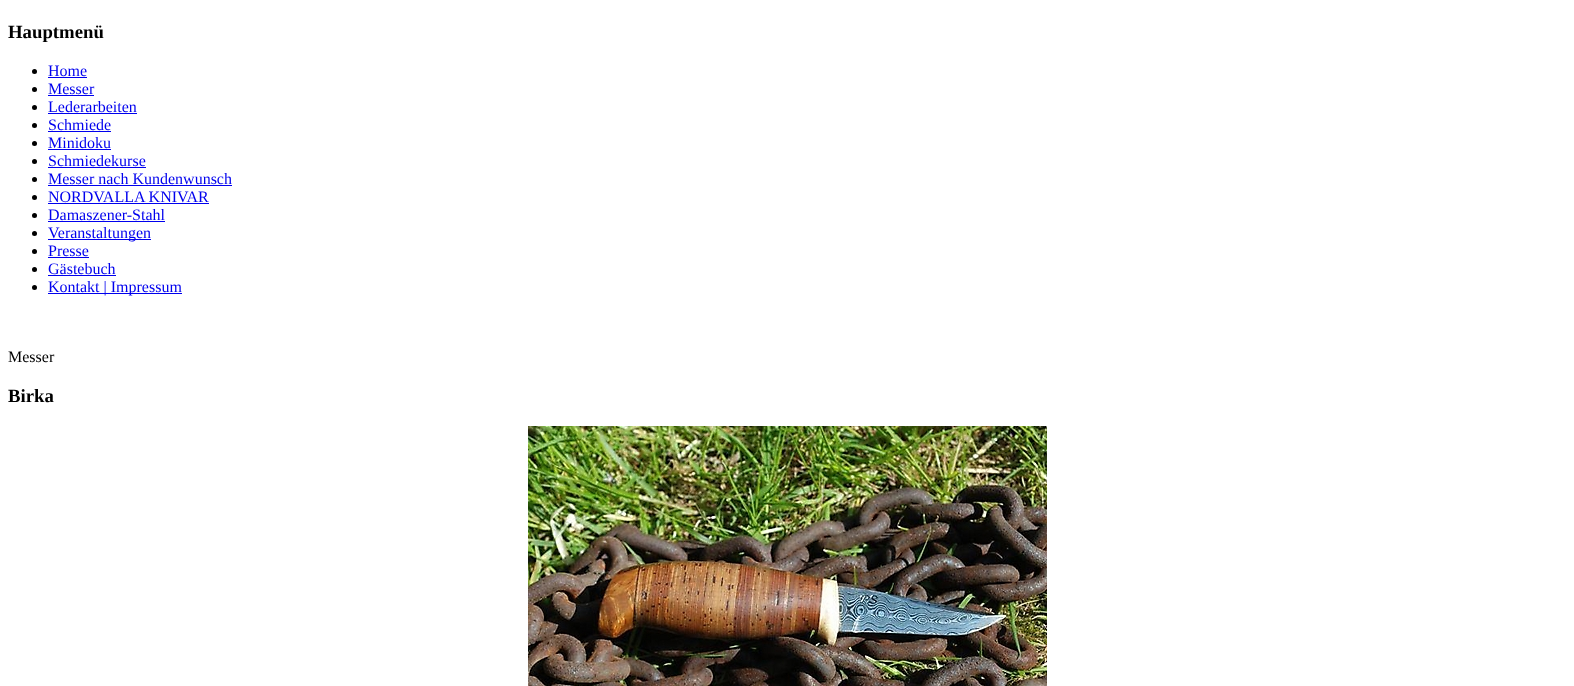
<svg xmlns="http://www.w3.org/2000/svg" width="1574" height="686">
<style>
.a{font:bold 18.75px Liberation Serif;fill:#000}
.b{font:16px Liberation Serif;fill:#00e}
.c{font:16px Liberation Serif;fill:#000}
</style>
<rect width="100%" height="100%" fill="#fff"/>
<circle fill="#000" cx="34.5" cy="71.5" r="2.5"/>
<path fill="#00e" d="M48 77h39v1H48z"/>
<circle fill="#000" cx="34.5" cy="89.5" r="2.5"/>
<path fill="#00e" d="M48 95h46v1H48z"/>
<circle fill="#000" cx="34.5" cy="107.5" r="2.5"/>
<path fill="#00e" d="M48 113h89v1H48z"/>
<circle fill="#000" cx="34.5" cy="125.5" r="2.5"/>
<path fill="#00e" d="M48 131h63v1H48z"/>
<circle fill="#000" cx="34.5" cy="143.5" r="2.5"/>
<path fill="#00e" d="M48 149h63v1H48z"/>
<circle fill="#000" cx="34.5" cy="161.5" r="2.5"/>
<path fill="#00e" d="M48 167h98v1H48z"/>
<circle fill="#000" cx="34.5" cy="179.5" r="2.5"/>
<path fill="#00e" d="M48 185h184v1H48z"/>
<circle fill="#000" cx="34.5" cy="197.5" r="2.5"/>
<path fill="#00e" d="M48 203h161v1H48z"/>
<circle fill="#000" cx="34.5" cy="215.5" r="2.5"/>
<path fill="#00e" d="M48 221h117v1H48z"/>
<circle fill="#000" cx="34.5" cy="233.5" r="2.5"/>
<path fill="#00e" d="M48 239h103v1H48z"/>
<circle fill="#000" cx="34.5" cy="251.5" r="2.5"/>
<path fill="#00e" d="M48 257h41v1H48z"/>
<circle fill="#000" cx="34.5" cy="269.5" r="2.5"/>
<path fill="#00e" d="M48 275h68v1H48z"/>
<circle fill="#000" cx="34.5" cy="287.5" r="2.5"/>
<path fill="#00e" d="M48 293h134v1H48z"/>
<image href="1.png" x="528" y="426" width="519" height="260"/>
<text class="a" x="8" y="38">Hauptmenü</text>
<text class="b" x="48" y="76">Home</text>
<text class="b" x="48" y="94">Messer</text>
<text class="b" x="48" y="112">Lederarbeiten</text>
<text class="b" x="48" y="130">Schmiede</text>
<text class="b" x="48" y="148">Minidoku</text>
<text class="b" x="48" y="166">Schmiedekurse</text>
<text class="b" x="48" y="184">Messer nach Kundenwunsch</text>
<text class="b" x="48" y="202">NORDVALLA KNIVAR</text>
<text class="b" x="48" y="220">Damaszener-Stahl</text>
<text class="b" x="48" y="238">Veranstaltungen</text>
<text class="b" x="48" y="256">Presse</text>
<text class="b" x="48" y="274">Gästebuch</text>
<text class="b" x="48" y="292">Kontakt | Impressum</text>
<text class="c" x="8" y="362">Messer</text>
<text class="a" x="8" y="402">Birka</text>
</svg>
